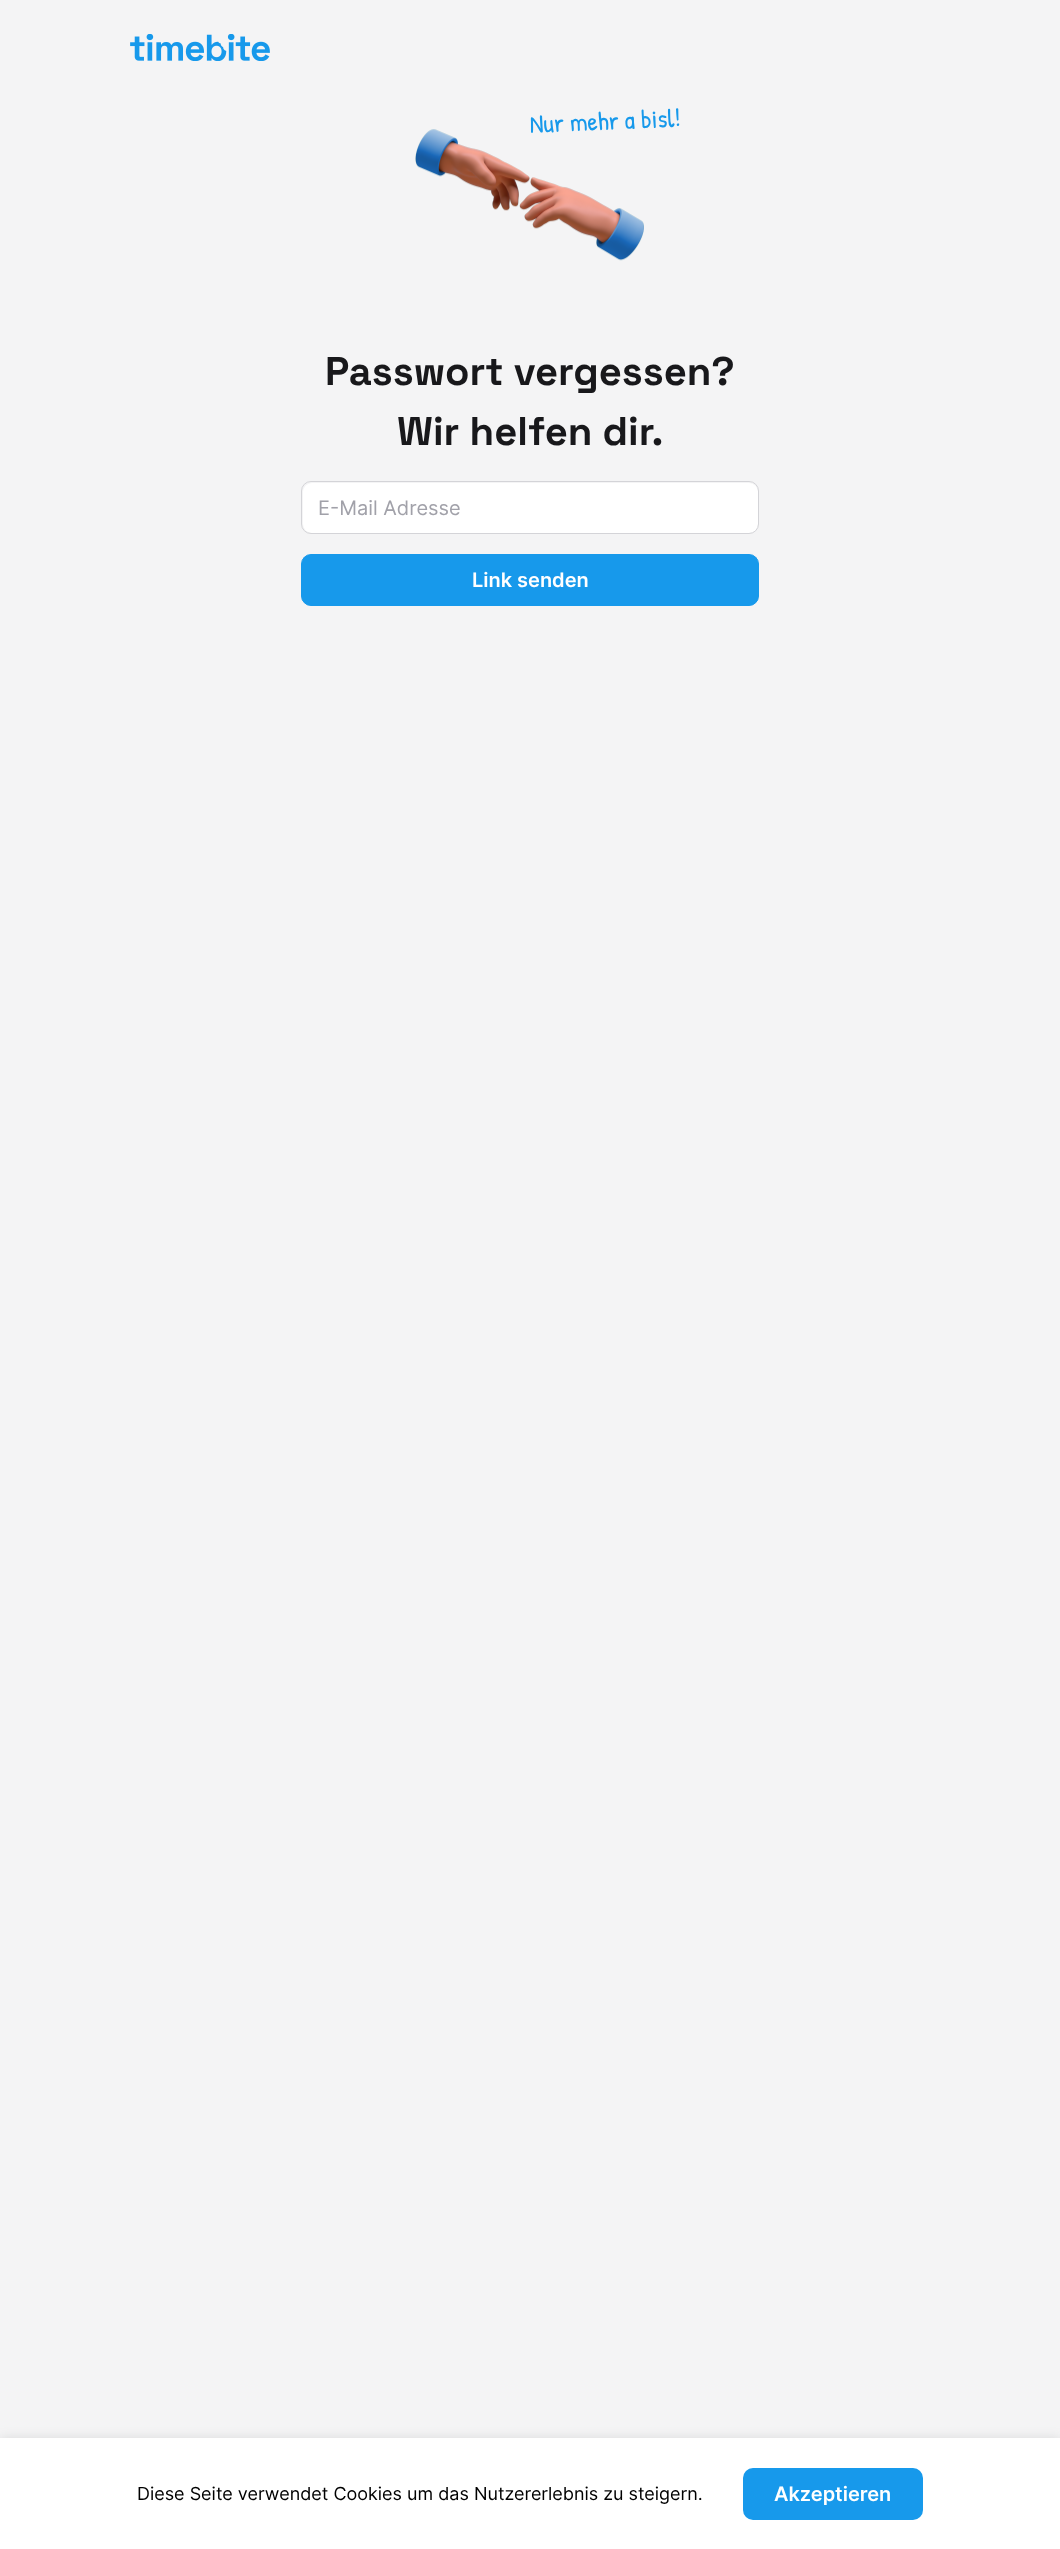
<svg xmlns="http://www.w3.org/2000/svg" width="1060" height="2549">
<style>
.a{font:26px Patrick Hand;fill:#1799eb}
.b{font:bold 40px Space Grotesk;fill:#18181b}
.c{font:20px Inter;fill:#a1a1a9}
.d{font:600 20px Inter;fill:#fff}
.e{font:18px Inter;fill:#000}
</style>
<rect width="100%" height="100%" fill="#f4f4f5"/>
<image href="1.png" x="130" y="34" width="140" height="27"/>
<image href="2.png" x="415" y="129" width="229" height="132"/>
<rect fill="#fff" x="303" y="483" width="455" height="50" rx="9"/>
<rect fill="none" stroke="#d4d4d8" x="301.5" y="481.5" width="457" height="52" rx="9.5"/>
<rect fill="#1799eb" stroke="#1799eb" x="301.5" y="554.5" width="457" height="51" rx="9.5"/>
<path fill="#0000001a" filter="blur(6px)" d="M0 2438h1060v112H0z"/>
<path fill="#fff" d="M0 2438h1060v111H0z"/>
<rect fill="#1799eb" x="743" y="2468" width="180" height="52" rx="10"/>
<text class="a" x="530" y="133" transform="rotate(-2.4 530 133)">Nur mehr a bisl!</text>
<text class="b" x="325" y="385">Passwort vergessen?</text>
<text class="b" x="397" y="445">Wir helfen dir.</text>
<text class="c" x="318" y="515">E-Mail Adresse</text>
<text class="d" x="472" y="587">Link senden</text>
<text class="e" x="137" y="2500">Diese Seite verwendet Cookies um das Nutzererlebnis zu steigern.</text>
<text class="d" x="774" y="2501">Akzeptieren</text>
</svg>
